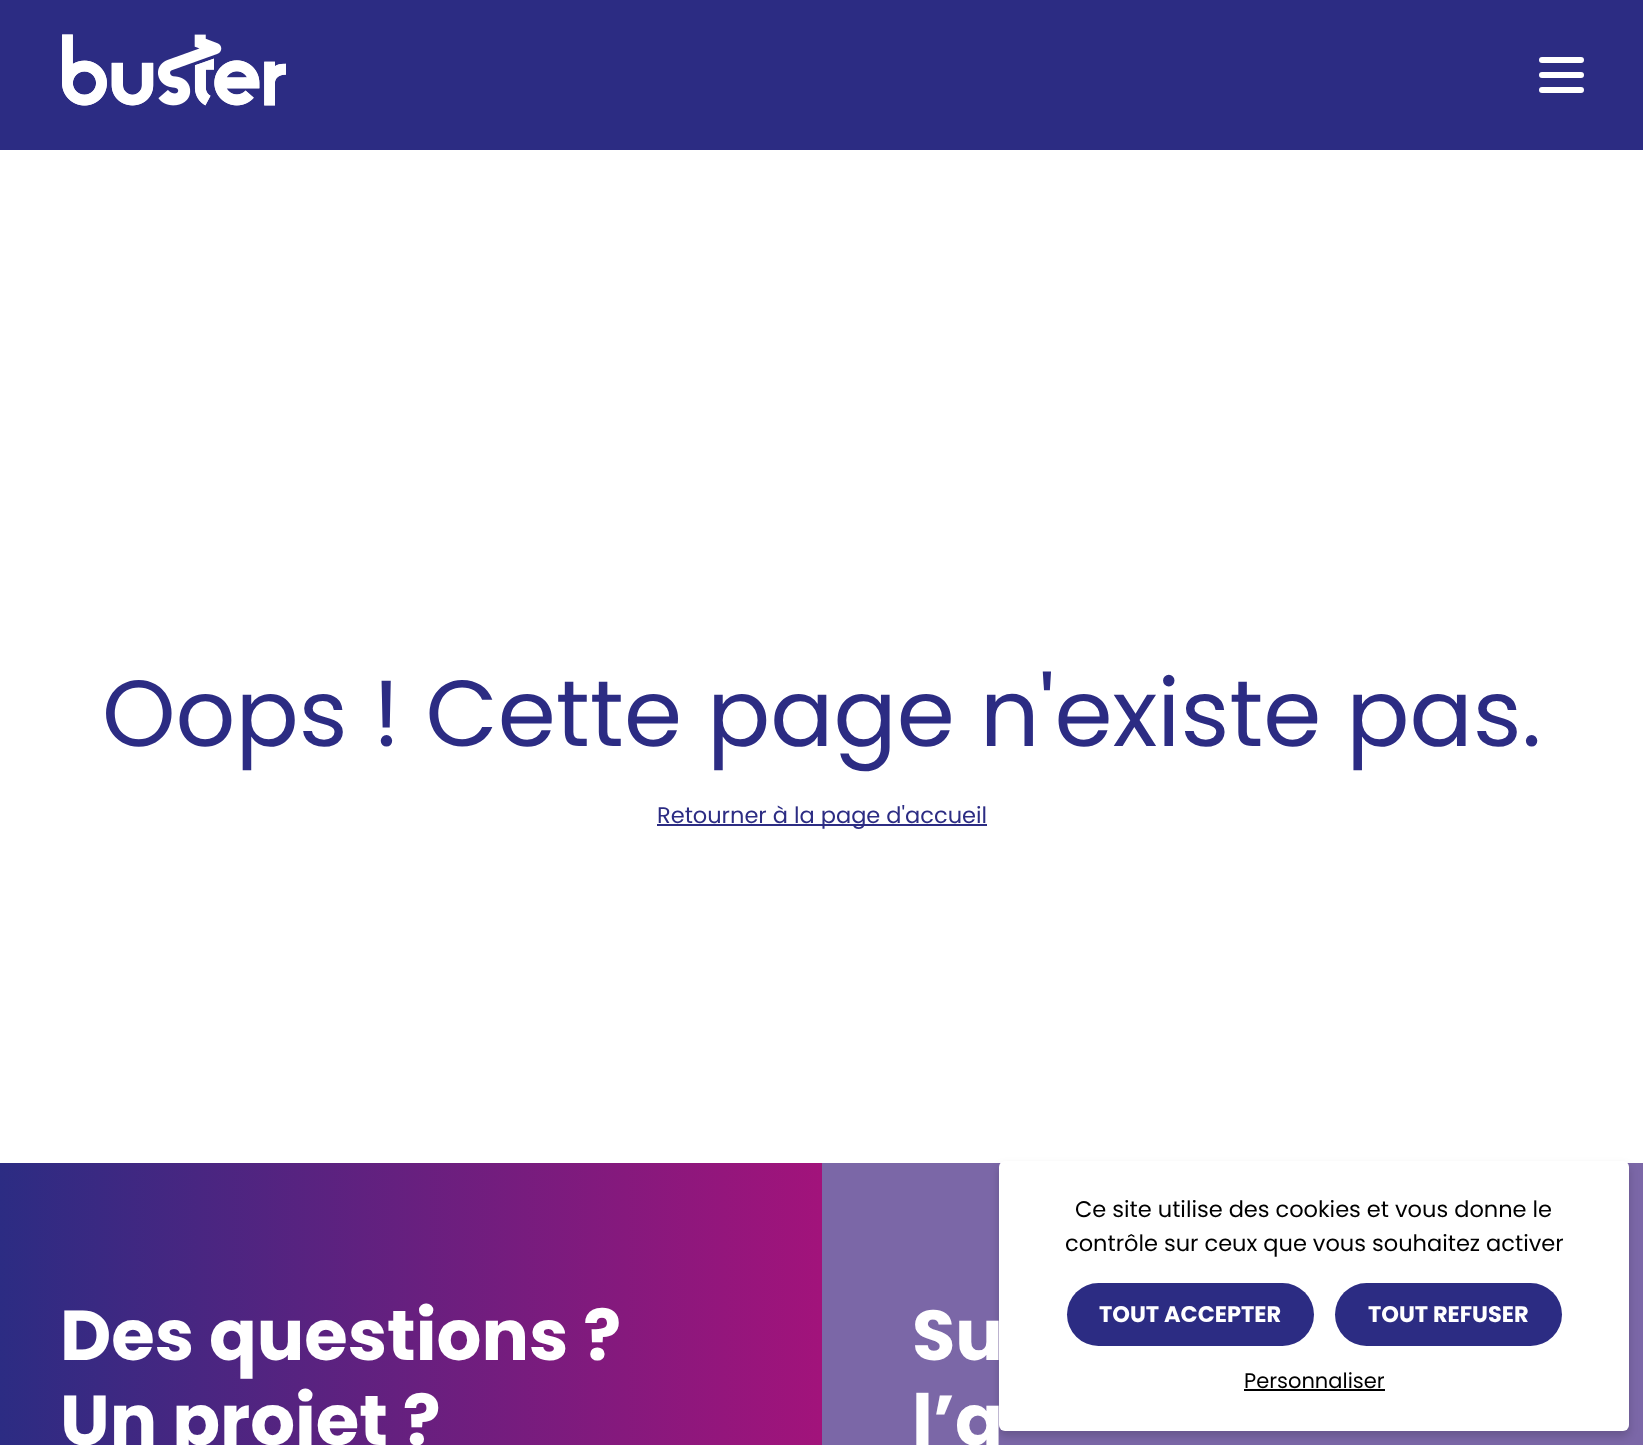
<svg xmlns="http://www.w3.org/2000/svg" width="1643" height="1445">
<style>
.a{font:93.6px Poppins;fill:#2c2c83}
.b{font:22.5px Poppins;fill:#2c2c83}
.c{font:bold 70.5px Poppins;fill:#fff}
.d{font:22.5px Poppins;fill:#000}
.e{font:bold 22.5px Poppins;fill:#fff}
.f{font:21px Poppins;fill:#000}
</style>
<defs>
<linearGradient id="g1" gradientUnits="userSpaceOnUse" x1="0" y1="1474" x2="822" y2="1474"><stop offset="0" stop-color="#2c2c83"/><stop offset="1" stop-color="#a2137b"/></linearGradient>
</defs>
<rect width="100%" height="100%" fill="#fff"/>
<path fill="#2c2c83" d="M0 0h1643v150H0z"/>
<image href="1.png" x="62" y="34" width="224" height="72"/>
<rect fill="#fff" x="1539" y="57" width="45" height="6" rx="3"/>
<rect fill="#fff" x="1539" y="72" width="45" height="6" rx="3"/>
<rect fill="#fff" x="1539" y="87" width="45" height="6" rx="3"/>
<path fill="#2c2c83" d="M657 824h330v2H657z"/>
<path fill="url(#g1)" d="M0 1163h822v282H0z"/>
<path fill="#7b67a7" d="M822 1163h821v282H822z"/>
<rect fill="#00000029" filter="blur(4.5px)" x="999" y="1166" width="630" height="270" rx="6"/>
<rect fill="#fff" x="999" y="1161" width="630" height="270" rx="6"/>
<rect fill="#2c2c83" x="1067" y="1283" width="247" height="63" rx="31.5"/>
<rect fill="#2c2c83" x="1335" y="1283" width="227" height="63" rx="31.5"/>
<path fill="#000" d="M1244 1389h141v2H1244z"/>
<text class="a" x="102" y="746">Oops ! Cette page n'existe pas.</text>
<text class="b" x="657" y="823">Retourner à la page d'accueil</text>
<text class="c" x="60" y="1360">Des questions ?</text>
<text class="c" x="60" y="1445">Un projet ?</text>
<text class="c" x="912" y="1360">Su</text>
<text class="c" x="912" y="1445">l’a</text>
<text class="d" x="1075" y="1217">Ce site utilise des cookies et vous donne le</text>
<text class="d" x="1065" y="1251">contrôle sur ceux que vous souhaitez activer</text>
<text class="e" x="1099" y="1322">TOUT ACCEPTER</text>
<text class="e" x="1368" y="1322">TOUT REFUSER</text>
<text class="f" x="1244" y="1388">Personnaliser</text>
</svg>
